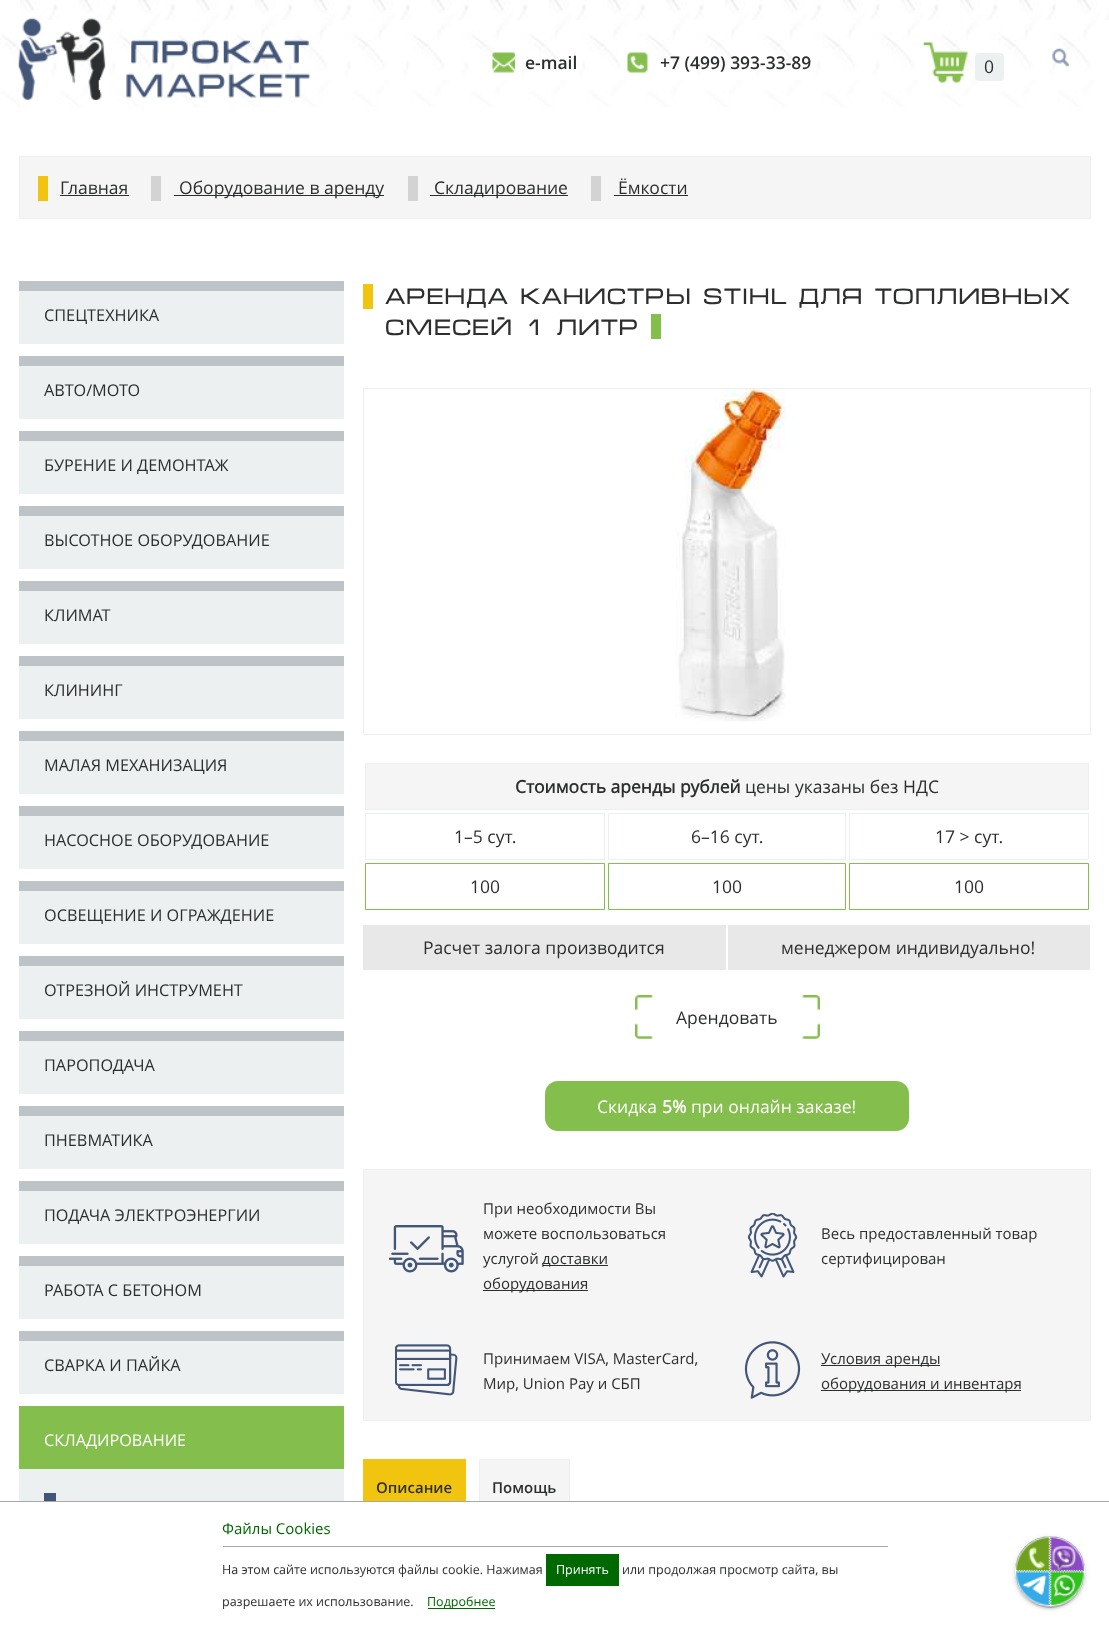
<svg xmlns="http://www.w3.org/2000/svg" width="1109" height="1631">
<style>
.a{font:600 17.5px Open Sans;fill:#2d2e2f}
.b{font:17.5px Open Sans;fill:#2d2e2f}
.c{font:16.25px Open Sans;fill:#2d2e2f}
.d{font:16.25px Open Sans;fill:#fff}
.e{font:22.5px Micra;fill:#2d2e2f}
.f{font:bold 17.5px Open Sans;fill:#2d2e2f}
.g{font:17.5px Open Sans;fill:#fff}
.h{font:bold 17.5px Open Sans;fill:#fff}
.i{font:15px Open Sans;fill:#2d2e2f}
.j{font:600 15px Open Sans;fill:#2d2e2f}
.k{font:15px Open Sans;fill:#006801}
.l{font:12.5px Open Sans;fill:#2d2e2f}
.m{font:12.5px Open Sans;fill:#fff}
.n{font:12.5px Open Sans;fill:#006801}
</style>
<rect width="100%" height="100%" fill="#fff"/>
<image href="1.png" x="0" y="0" width="1109" height="107"/>
<image href="2.png" x="18" y="18" width="293" height="82"/>
<image href="3.png" x="492" y="52" width="23" height="21"/>
<image href="4.png" x="627" y="52" width="21" height="21"/>
<image href="5.png" x="923" y="42" width="45" height="41"/>
<rect fill="#ecf0f1" x="975" y="53" width="29" height="28" rx="4"/>
<image href="6.png" x="1052" y="48" width="17" height="19"/>
<path fill="#f5f5f5" stroke="#ecf0f1" d="M19.5 156.5h1071v62H19.5z"/>
<path fill="#f1c40f" d="M38 176h10v25H38z"/>
<path fill="#2d2e2f" d="M60 195h69v1H60z"/>
<path fill="#d3d3d3" d="M151 176h10v25H151z"/>
<path fill="#2d2e2f" d="M174 195h210v1H174z"/>
<path fill="#d3d3d3" d="M408 176h10v25H408z"/>
<path fill="#2d2e2f" d="M430 195h138v1H430z"/>
<path fill="#d3d3d3" d="M591 176h10v25H591z"/>
<path fill="#2d2e2f" d="M614 195h74v1H614z"/>
<path fill="#ecf0f1" d="M19 291h325v53H19z"/>
<path fill="#bdc3c7" d="M19 281h325v10H19z"/>
<path fill="#ecf0f1" d="M19 366h325v53H19z"/>
<path fill="#bdc3c7" d="M19 356h325v10H19z"/>
<path fill="#ecf0f1" d="M19 441h325v53H19z"/>
<path fill="#bdc3c7" d="M19 431h325v10H19z"/>
<path fill="#ecf0f1" d="M19 516h325v53H19z"/>
<path fill="#bdc3c7" d="M19 506h325v10H19z"/>
<path fill="#ecf0f1" d="M19 591h325v53H19z"/>
<path fill="#bdc3c7" d="M19 581h325v10H19z"/>
<path fill="#ecf0f1" d="M19 666h325v53H19z"/>
<path fill="#bdc3c7" d="M19 656h325v10H19z"/>
<path fill="#ecf0f1" d="M19 741h325v53H19z"/>
<path fill="#bdc3c7" d="M19 731h325v10H19z"/>
<path fill="#ecf0f1" d="M19 816h325v53H19z"/>
<path fill="#bdc3c7" d="M19 806h325v10H19z"/>
<path fill="#ecf0f1" d="M19 891h325v53H19z"/>
<path fill="#bdc3c7" d="M19 881h325v10H19z"/>
<path fill="#ecf0f1" d="M19 966h325v53H19z"/>
<path fill="#bdc3c7" d="M19 956h325v10H19z"/>
<path fill="#ecf0f1" d="M19 1041h325v53H19z"/>
<path fill="#bdc3c7" d="M19 1031h325v10H19z"/>
<path fill="#ecf0f1" d="M19 1116h325v53H19z"/>
<path fill="#bdc3c7" d="M19 1106h325v10H19z"/>
<path fill="#ecf0f1" d="M19 1191h325v53H19z"/>
<path fill="#bdc3c7" d="M19 1181h325v10H19z"/>
<path fill="#ecf0f1" d="M19 1266h325v53H19z"/>
<path fill="#bdc3c7" d="M19 1256h325v10H19z"/>
<path fill="#ecf0f1" d="M19 1341h325v53H19z"/>
<path fill="#bdc3c7" d="M19 1331h325v10H19z"/>
<path fill="#ecf0f1" d="M19 1469h325v32H19z"/>
<path fill="#84be4c" d="M19 1406h325v63H19z"/>
<path fill="#445678" d="M44 1493h12v8H44z"/>
<path fill="#f1c40f" d="M363 284h10v25H363z"/>
<path fill="#84be4c" d="M651 314h10v25H651z"/>
<path fill="none" stroke="#ecf0f1" d="M363.5 388.5h727v346H363.5z"/>
<image href="7.png" x="675" y="389" width="111" height="333"/>
<path fill="#f5f5f5" stroke="#ecf0f1" d="M365.5 763.5h723v46H365.5z"/>
<path fill="none" stroke="#ecf0f1" d="M365.5 813.5h239v46H365.5z"/>
<path fill="none" stroke="#ecf0f1" d="M608.5 813.5h237v46H608.5z"/>
<path fill="none" stroke="#ecf0f1" d="M849.5 813.5h239v46H849.5z"/>
<path fill="none" stroke="#84be4c" d="M365.5 863.5h239v46H365.5z"/>
<path fill="none" stroke="#84be4c" d="M608.5 863.5h237v46H608.5z"/>
<path fill="none" stroke="#84be4c" d="M849.5 863.5h239v46H849.5z"/>
<path fill="#e8e8e8" d="M363 925h363v45H363z"/>
<path fill="#e8e8e8" d="M728 925h362v45H728z"/>
<image href="8.png" x="635" y="995" width="185" height="44"/>
<rect fill="#84be4c" x="545" y="1081" width="364" height="50" rx="13"/>
<path fill="#f5f5f5" stroke="#ecf0f1" d="M363.5 1169.5h727v251H363.5z"/>
<image href="9.png" x="389" y="1225" width="75" height="48"/>
<path fill="#2d2e2f" d="M543 1265h65v1H543z"/>
<path fill="#2d2e2f" d="M483 1290h105v1H483z"/>
<image href="10.png" x="747" y="1213" width="51" height="65"/>
<image href="11.png" x="395" y="1344" width="63" height="52"/>
<image href="12.png" x="744" y="1341" width="57" height="58"/>
<path fill="#2d2e2f" d="M821 1365h119v1H821z"/>
<path fill="#2d2e2f" d="M821 1390h200v1H821z"/>
<path fill="#f1c40f" d="M363 1459h103v42H363z"/>
<path fill="#f5f5f5" d="M480 1460h89v41H480z"/>
<path fill="none" stroke="#ecf0f1" d="M479.5 1459.5h90v56H479.5z"/>
<path fill="#fff" d="M479 1502h91v14H479z"/>
<path fill="#a8a8a8" d="M0 1501h1109v1H0z"/>
<path fill="#a8a8a8" d="M223 1546h665v1H223z"/>
<path fill="#006801" d="M546 1554h73v32H546z"/>
<path fill="#006801" d="M428 1608h67v1H428z"/>
<rect fill="#00000033" filter="blur(0.5px)" x="1018" y="1543" width="65" height="65" rx="32.5"/>
<rect fill="#0000001f" filter="blur(3px)" x="1015" y="1538" width="70" height="70" rx="35"/>
<rect fill="#00000024" filter="blur(1px)" x="1015" y="1539" width="70" height="70" rx="35"/>
<circle fill="#454a55" cx="1050" cy="1571" r="35"/>
<image href="13.png" x="1015" y="1536" width="70" height="71"/>
<text class="a" x="525" y="69">e-mail</text>
<text class="a" x="660" y="69">+7 (499) 393-33-89</text>
<text class="b" x="984" y="73">0</text>
<text class="b" x="60" y="194">Главная</text>
<text class="b" x="179" y="194">Оборудование в аренду</text>
<text class="b" x="434" y="194">Складирование</text>
<text class="b" x="618" y="194">Ёмкости</text>
<text class="c" x="44" y="321">СПЕЦТЕХНИКА</text>
<text class="c" x="44" y="396">АВТО/МОТО</text>
<text class="c" x="44" y="471">БУРЕНИЕ И ДЕМОНТАЖ</text>
<text class="c" x="44" y="546">ВЫСОТНОЕ ОБОРУДОВАНИЕ</text>
<text class="c" x="44" y="621">КЛИМАТ</text>
<text class="c" x="44" y="696">КЛИНИНГ</text>
<text class="c" x="44" y="771">МАЛАЯ МЕХАНИЗАЦИЯ</text>
<text class="c" x="44" y="846">НАСОСНОЕ ОБОРУДОВАНИЕ</text>
<text class="c" x="44" y="921">ОСВЕЩЕНИЕ И ОГРАЖДЕНИЕ</text>
<text class="c" x="44" y="996">ОТРЕЗНОЙ ИНСТРУМЕНТ</text>
<text class="c" x="44" y="1071">ПАРОПОДАЧА</text>
<text class="c" x="44" y="1146">ПНЕВМАТИКА</text>
<text class="c" x="44" y="1221">ПОДАЧА ЭЛЕКТРОЭНЕРГИИ</text>
<text class="c" x="44" y="1296">РАБОТА С БЕТОНОМ</text>
<text class="c" x="44" y="1371">СВАРКА И ПАЙКА</text>
<text class="d" x="44" y="1446">СКЛАДИРОВАНИЕ</text>
<text class="e" x="385" y="304">АРЕНДА КАНИСТРЫ STIHL ДЛЯ ТОПЛИВНЫХ</text>
<text class="e" x="385" y="335">СМЕСЕЙ 1 ЛИТР</text>
<text class="f" x="515" y="793">Стоимость аренды рублей</text>
<text class="b" x="745" y="793">цены указаны без НДС</text>
<text class="b" x="454" y="843">1–5 сут.</text>
<text class="b" x="691" y="843">6–16 сут.</text>
<text class="b" x="935" y="843">17 &gt; сут.</text>
<text class="b" x="470" y="893">100</text>
<text class="b" x="712" y="893">100</text>
<text class="b" x="954" y="893">100</text>
<text class="b" x="423" y="954">Расчет залога производится</text>
<text class="b" x="781" y="954">менеджером индивидуально!</text>
<text class="b" x="676" y="1024">Арендовать</text>
<text class="g" x="597" y="1113">Скидка</text>
<text class="h" x="662" y="1113">5%</text>
<text class="g" x="691" y="1113">при онлайн заказе!</text>
<text class="i" x="483" y="1214">При необходимости Вы</text>
<text class="i" x="483" y="1239">можете воспользоваться</text>
<text class="i" x="483" y="1264">услугой</text>
<text class="i" x="542" y="1264">доставки</text>
<text class="i" x="483" y="1289">оборудования</text>
<text class="i" x="821" y="1239">Весь предоставленный товар</text>
<text class="i" x="821" y="1264">сертифицирован</text>
<text class="i" x="483" y="1364">Принимаем VISA, MasterCard,</text>
<text class="i" x="483" y="1389">Мир, Union Pay и СБП</text>
<text class="i" x="821" y="1364">Условия аренды</text>
<text class="i" x="821" y="1389">оборудования и инвентаря</text>
<text class="j" x="376" y="1493">Описание</text>
<text class="j" x="492" y="1493">Помощь</text>
<text class="k" x="222" y="1534">Файлы Cookies</text>
<text class="l" x="222" y="1574">На этом сайте используются файлы cookie. Нажимая</text>
<text class="m" x="556" y="1574">Принять</text>
<text class="l" x="622" y="1574">или продолжая просмотр сайта, вы</text>
<text class="l" x="222" y="1606">разрешаете их использование.</text>
<text class="n" x="427" y="1606">Подробнее</text>
</svg>
